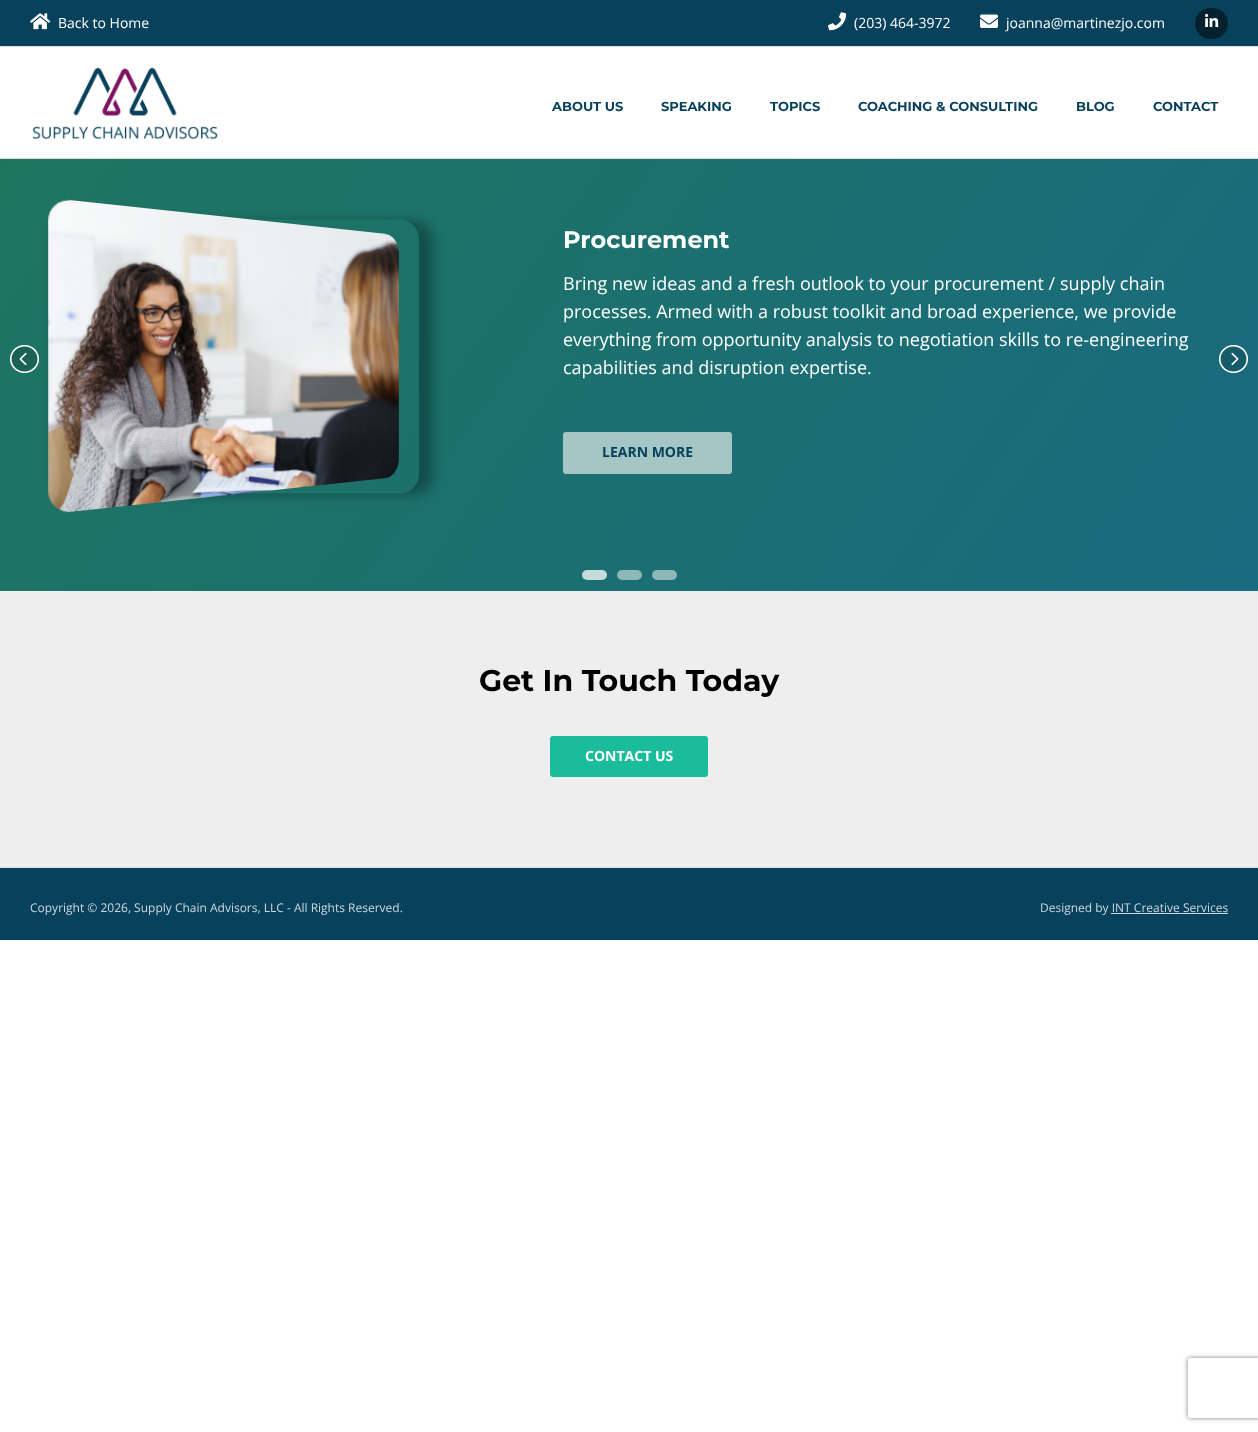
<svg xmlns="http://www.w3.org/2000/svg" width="1258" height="1432">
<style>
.a{font:14px Open Sans;fill:#fff}
.b{font:bold 13px Montserrat;fill:#08415c}
.c{font:bold 24px Montserrat;fill:#fff}
.d{font:18px Open Sans;fill:#fff}
.e{font:bold 14px Open Sans;fill:#08415c}
.f{font:bold 30px Montserrat;fill:#000}
.g{font:bold 14px Open Sans;fill:#fff}
.h{font:12px Open Sans;fill:#ced9de}
</style>
<defs>
<linearGradient id="g1" gradientUnits="userSpaceOnUse" x1="211" y1="-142" x2="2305" y2="1324"><stop offset="0" stop-color="#1e755f"/><stop offset="1" stop-color="#145fa0"/></linearGradient>
<clipPath id="clip1"><path d="M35 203h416v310h-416zm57.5 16.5h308c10 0 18.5 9 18.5 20v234c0 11-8.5 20-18.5 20h-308c-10 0-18-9-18-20v-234c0-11 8-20 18-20z" clip-rule="evenodd"/></clipPath>
<clipPath id="clip2"><path d="M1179 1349h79v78h-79zm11 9h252c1 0 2 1 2 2v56c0 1-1 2-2 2h-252c-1 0-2-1-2-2v-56c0-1 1-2 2-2z" clip-rule="evenodd"/></clipPath>
</defs>
<rect width="100%" height="100%" fill="#fff"/>
<path fill="#08415c" d="M0 0h1258v46H0z"/>
<image href="1.png" x="30" y="13" width="21" height="17"/>
<image href="2.png" x="828" y="12" width="18" height="19"/>
<image href="3.png" x="980" y="14" width="18" height="14"/>
<rect fill="#04212e" x="1195" y="8" width="33" height="31" rx="15.5"/>
<image href="4.png" x="1205" y="13" width="14" height="14"/>
<path fill="#ddd" d="M0 46h1258v1H0z"/>
<path fill="#ddd" d="M0 158h1258v1H0z"/>
<image href="5.png" x="32" y="67" width="186" height="73"/>
<path fill="url(#g1)" d="M0 159h1258v432H0z"/>
<g clip-path="url(#clip1)">
<rect fill="#0000004d" filter="blur(5.5px)" x="53" y="221" width="380" height="274" rx="20"/>
</g>
<image href="6.png" x="48" y="199" width="351" height="314"/>
<rect fill="#a4c6c4" x="563" y="432" width="169" height="42" rx="3"/>
<image href="7.png" x="10" y="345" width="29" height="28"/>
<image href="8.png" x="1219" y="345" width="29" height="28"/>
<rect fill="#c6dbdc" x="582" y="570" width="25" height="10" rx="5"/>
<rect fill="#8db7b9" x="617" y="570" width="25" height="10" rx="5"/>
<rect fill="#8db7b9" x="652" y="570" width="25" height="10" rx="5"/>
<path fill="#eee" d="M0 591h1258v276H0z"/>
<rect fill="#1abc9c" x="550" y="736" width="158" height="41" rx="3"/>
<path fill="#08415c" d="M0 868h1258v72H0z"/>
<path fill="#ddd" d="M0 867h1258v1H0z"/>
<path fill="#ced9de" d="M1111 913h117v1H1111z"/>
<g clip-path="url(#clip2)">
<rect fill="#808080" filter="blur(2.5px)" x="1188" y="1358" width="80" height="60" rx="2"/>
</g>
<text class="a" x="58" y="28">Back to Home</text>
<text class="a" x="854" y="28">(203) 464-3972</text>
<text class="a" x="1006" y="28">joanna@martinezjo.com</text>
<text class="b" x="552" y="111">ABOUT US</text>
<text class="b" x="661" y="111">SPEAKING</text>
<text class="b" x="770" y="111">TOPICS</text>
<text class="b" x="858" y="111">COACHING &amp; CONSULTING</text>
<text class="b" x="1076" y="111">BLOG</text>
<text class="b" x="1153" y="111">CONTACT</text>
<text class="c" x="563" y="248">Procurement</text>
<text class="d" x="563" y="290">Bring new ideas and a fresh outlook to your procurement / supply chain</text>
<text class="d" x="563" y="318">processes. Armed with a robust toolkit and broad experience, we provide</text>
<text class="d" x="563" y="346">everything from opportunity analysis to negotiation skills to re-engineering</text>
<text class="d" x="563" y="374">capabilities and disruption expertise.</text>
<text class="e" x="602" y="457">LEARN MORE</text>
<text class="f" x="479" y="691">Get In Touch Today</text>
<text class="g" x="585" y="761">CONTACT US</text>
<text class="h" x="30" y="912">Copyright © 2026, Supply Chain Advisors, LLC - All Rights Reserved.</text>
<text class="h" x="1040" y="912">Designed by INT Creative Services</text>
</svg>
